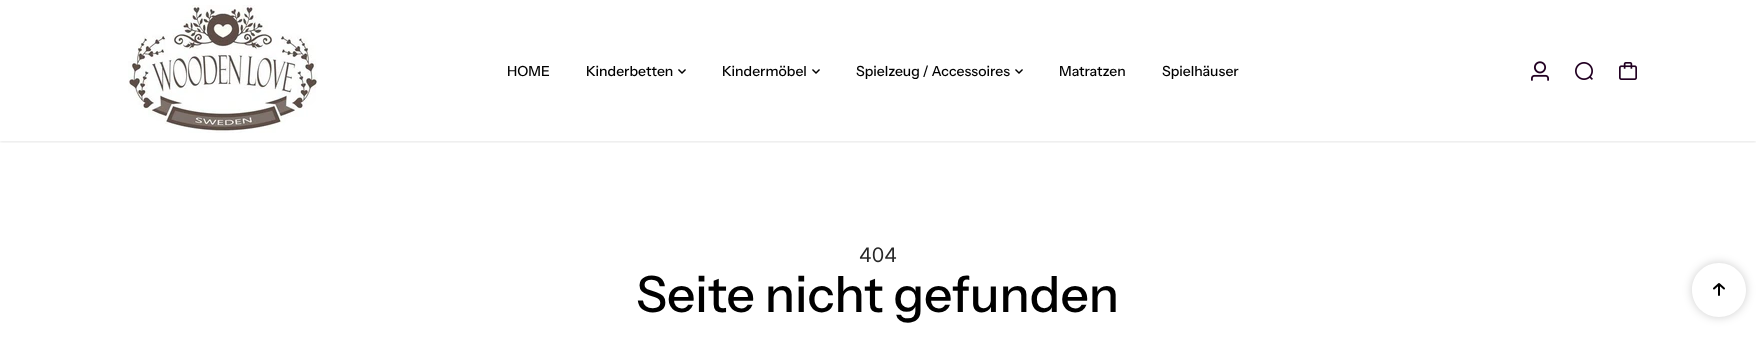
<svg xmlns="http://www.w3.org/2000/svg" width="1756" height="337">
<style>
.a{font:500 14px Instrument Sans;fill:#000}
.b{font:20px Inter;fill:#282828}
.c{font:500 50px Instrument Sans;fill:#000}
</style>
<defs>
<clipPath id="clip1"><path d="M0 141h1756v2H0z"/></clipPath>
<clipPath id="clip2"><path d="M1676 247h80v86h-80zm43 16c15 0 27 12 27 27c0 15-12 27-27 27c-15 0-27-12-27-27c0-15 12-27 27-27z" clip-rule="evenodd"/></clipPath>
</defs>
<rect width="100%" height="100%" fill="#fff"/>
<g clip-path="url(#clip1)">
<path fill="#0000001a" filter="blur(1.5px)" d="M0 1h1756v141H0z"/>
</g>
<image href="1.png" x="128" y="5" width="190" height="128"/>
<image href="2.png" x="678" y="69" width="8" height="5"/>
<image href="2.png" x="812" y="69" width="8" height="5"/>
<image href="2.png" x="1015" y="69" width="8" height="5"/>
<image href="3.png" x="1531" y="61" width="18" height="20"/>
<image href="4.png" x="1575" y="62" width="18" height="18"/>
<image href="5.png" x="1619" y="62" width="18" height="18"/>
<g clip-path="url(#clip2)">
<rect fill="#00000033" filter="blur(5px)" x="1692" y="263" width="54" height="54" rx="27"/>
</g>
<path fill="none" stroke="#000" stroke-width="2" stroke-linecap="round" stroke-linejoin="round" d="M1719 295v-10.5m5 4l-5-4.5l-5 4.5"/>
<text class="a" x="507" y="76">HOME</text>
<text class="a" x="586" y="76">Kinderbetten</text>
<text class="a" x="722" y="76">Kindermöbel</text>
<text class="a" x="856" y="76">Spielzeug / Accessoires</text>
<text class="a" x="1059" y="76">Matratzen</text>
<text class="a" x="1162" y="76">Spielhäuser</text>
<text class="b" x="859" y="262">404</text>
<text class="c" x="636" y="312">Seite nicht gefunden</text>
</svg>
